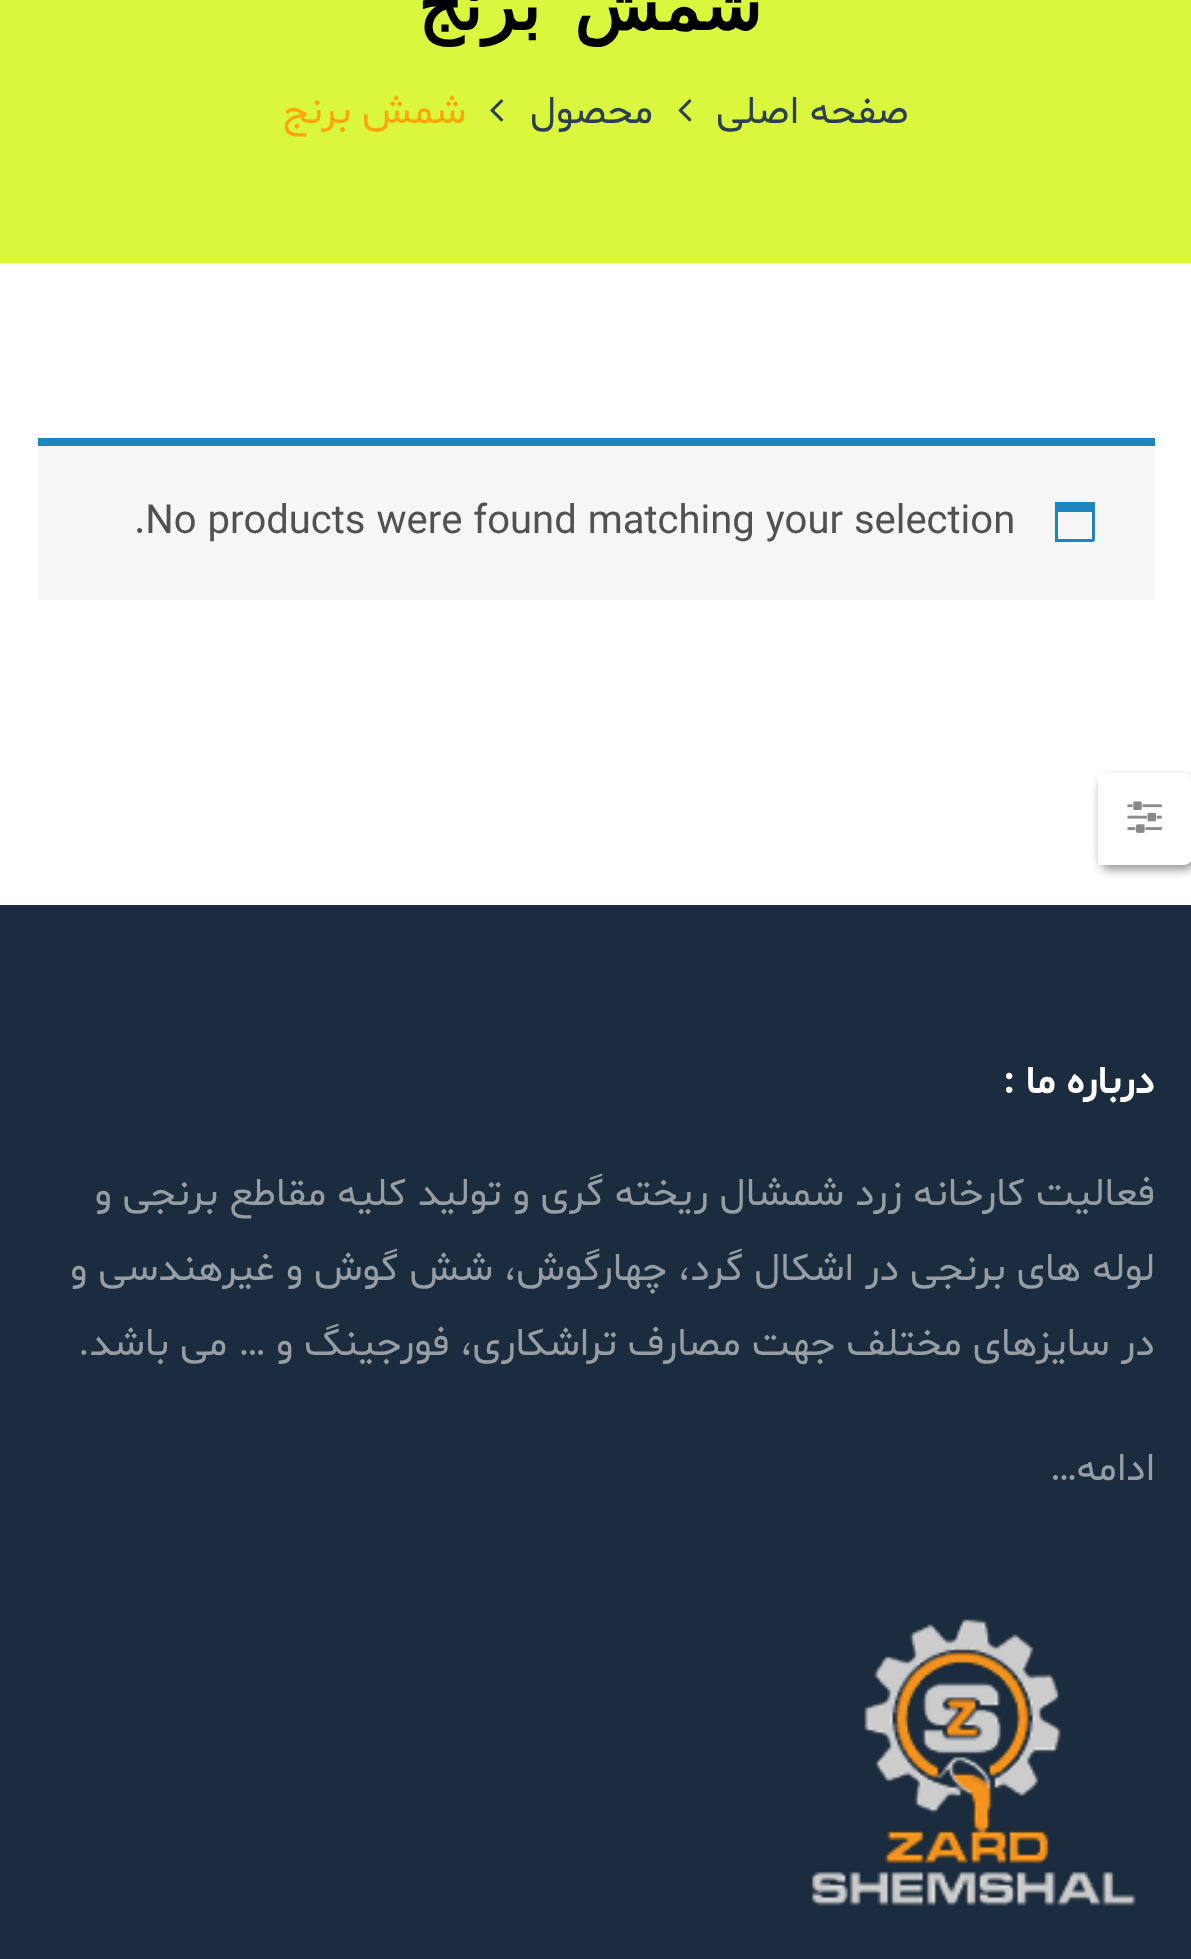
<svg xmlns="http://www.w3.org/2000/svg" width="1191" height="1959">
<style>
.a{font:bold 70px DejaVu Sans;letter-spacing:-1.75px;direction:rtl;fill:#000}
.b{font:40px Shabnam;direction:rtl;fill:#2c3e50}
.c{font:40px Shabnam;direction:rtl;fill:#ffa60a}
.d{font:40px Shabnam;fill:#515151}
.e{font:bold 40px Shabnam;direction:rtl;fill:#fff}
.f{font:40px Shabnam;direction:rtl;fill:#979da4}
</style>
<rect width="100%" height="100%" fill="#fff"/>
<path fill="#daf73e" d="M0 0h1191v263H0z"/>
<image href="1.png" x="678" y="99" width="14" height="23"/>
<image href="2.png" x="490" y="99" width="14" height="23"/>
<path fill="#f7f6f7" d="M38 446h1117v154H38z"/>
<path fill="#1e85be" d="M38 438h1117v8H38z"/>
<path fill="#1e85be" d="M1092 512h-34v27h34zm3-10v31c0 10 1 9-9 9h-31v-40z"/>
<rect fill="#00000066" filter="blur(5px)" x="1100" y="778" width="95" height="92" rx="10"/>
<path fill="#fff" d="M1098 773h85c5.5 0 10 4.5 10 10v72c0 5.5-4.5 10-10 10h-85z"/>
<image href="3.png" x="1127" y="801" width="35" height="32"/>
<path fill="#1b2c3e" d="M0 905h1191v1054H0z"/>
<image href="4.png" x="811" y="1619" width="325" height="287"/>
<text class="a" x="762" y="30" word-spacing="11">شمش برنج</text>
<text class="b" x="909" y="123">صفحه اصلی</text>
<text class="b" x="653" y="123">محصول</text>
<text class="c" x="466" y="123">شمش برنج</text>
<text class="d" x="134" y="533">.No products were found matching your selection</text>
<text class="e" x="1155" y="1093">درباره ما :</text>
<text class="f" x="1155" y="1205">فعالیت کارخانه زرد شمشال ریخته گری و تولید کلیه مقاطع برنجی و</text>
<text class="f" x="1155" y="1280">لوله های برنجی در اشکال گرد، چهارگوش، شش گوش و غیرهندسی و</text>
<text class="f" x="1155" y="1355">در سایزهای مختلف جهت مصارف تراشکاری، فورجینگ و … می باشد.</text>
<text class="f" x="1155" y="1480">ادامه…</text>
</svg>
